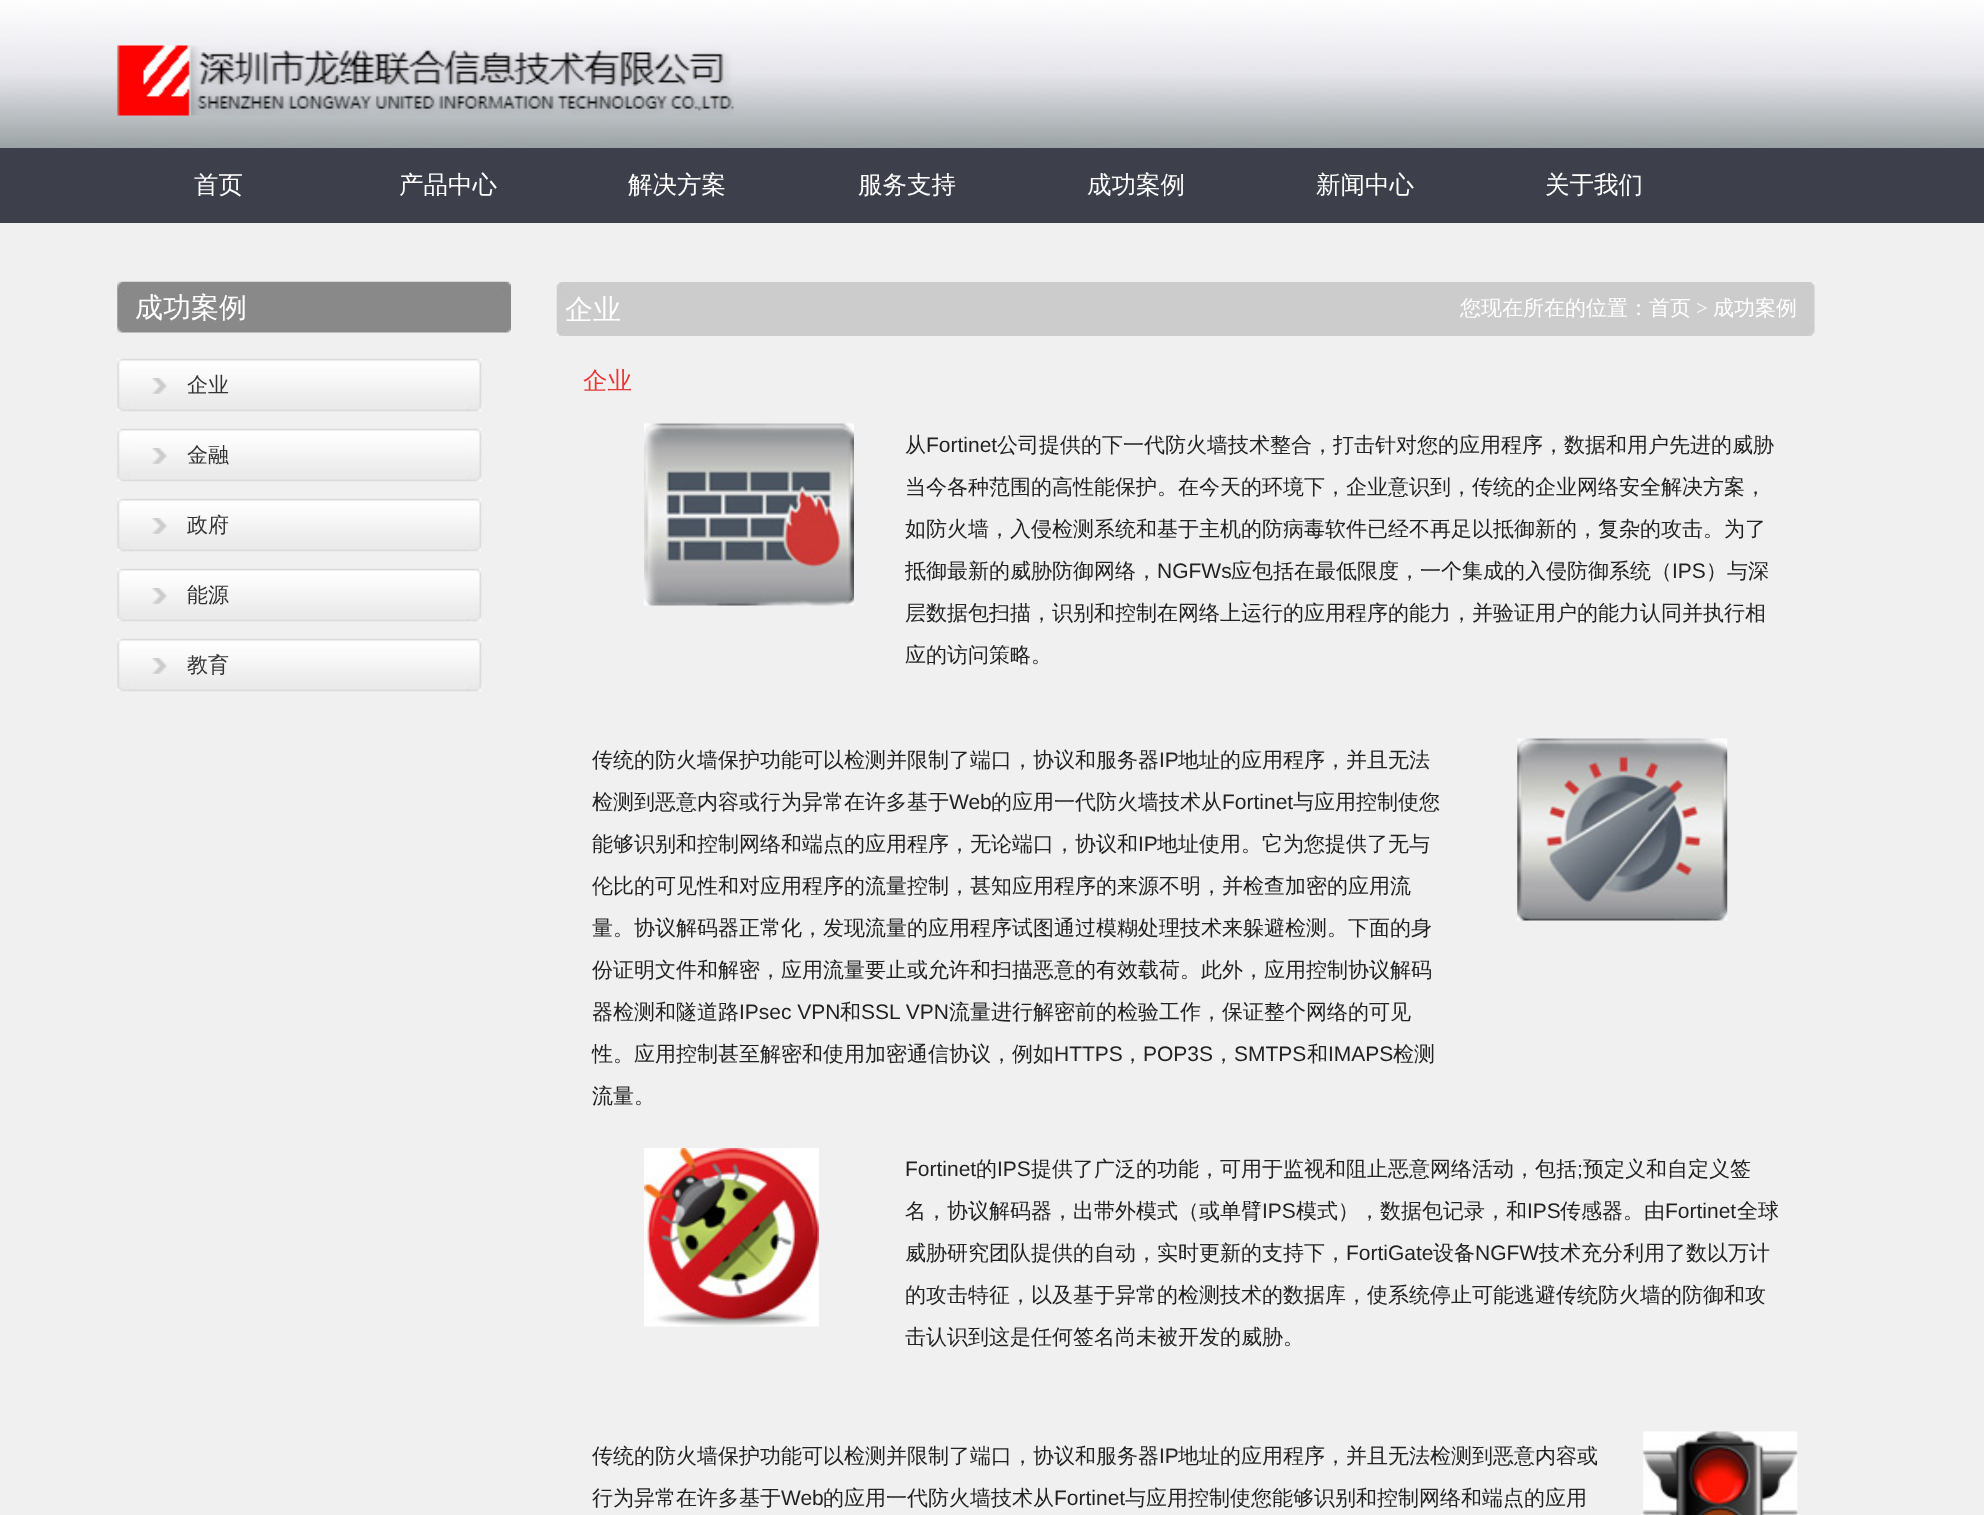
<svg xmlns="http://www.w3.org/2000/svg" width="1984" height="1515">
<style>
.a{font:500 24.5px WenQuanYi Zen Hei;fill:#fff}
.b{font:500 28px WenQuanYi Zen Hei;fill:#fff}
.c{font:500 21px WenQuanYi Zen Hei;fill:#333}
.d{font:500 21px WenQuanYi Zen Hei;fill:#fff}
.e{font:21px Liberation Serif;fill:#fff}
.f{font:500 24.5px WenQuanYi Zen Hei;fill:#e7383a}
.g{font:500 21px WenQuanYi Zen Hei;fill:#222}
.h{font:21px Liberation Sans;fill:#222}
</style>
<rect width="100%" height="100%" fill="#f0f0f0"/>
<image href="1.png" x="0" y="0" width="1984" height="148"/>
<image href="2.png" x="117" y="45" width="617" height="71"/>
<path fill="#3d3f4b" d="M0 148h1984v75H0z"/>
<image href="3.png" x="117" y="281" width="394" height="52"/>
<image href="4.png" x="117" y="358" width="365" height="54"/>
<image href="5.png" x="152" y="378" width="15" height="16"/>
<image href="4.png" x="117" y="428" width="365" height="54"/>
<image href="5.png" x="152" y="448" width="15" height="16"/>
<image href="4.png" x="117" y="498" width="365" height="54"/>
<image href="5.png" x="152" y="518" width="15" height="16"/>
<image href="4.png" x="117" y="568" width="365" height="54"/>
<image href="5.png" x="152" y="588" width="15" height="16"/>
<image href="4.png" x="117" y="638" width="365" height="54"/>
<image href="5.png" x="152" y="658" width="15" height="16"/>
<image href="6.png" x="556" y="282" width="1259" height="54"/>
<image href="7.png" x="644" y="423" width="210" height="183"/>
<image href="8.png" x="1517" y="738" width="211" height="183"/>
<image href="9.png" x="644" y="1148" width="175" height="179"/>
<image href="10.png" x="1643" y="1431" width="155" height="84"/>
<text class="a" x="194" y="193">首页</text>
<text class="a" x="399" y="193">产品中心</text>
<text class="a" x="628" y="193">解决方案</text>
<text class="a" x="858" y="193">服务支持</text>
<text class="a" x="1087" y="193">成功案例</text>
<text class="a" x="1316" y="193">新闻中心</text>
<text class="a" x="1545" y="193">关于我们</text>
<text class="b" x="135" y="317">成功案例</text>
<text class="c" x="187" y="392">企业</text>
<text class="c" x="187" y="462">金融</text>
<text class="c" x="187" y="532">政府</text>
<text class="c" x="187" y="602">能源</text>
<text class="c" x="187" y="672">教育</text>
<text class="b" x="565" y="319">企业</text>
<text class="d" x="1460" y="315">您现在所在的位置：首页</text>
<text class="e" x="1696" y="315">&gt;</text>
<text class="d" x="1713" y="315">成功案例</text>
<text class="f" x="583" y="389">企业</text>
<text class="g" x="905" y="452">从</text>
<text class="h" x="926" y="452">Fortinet</text>
<text class="g" x="997" y="452">公司提供的下一代防火墙技术整合，打击针对您的应用程序，数据和用户先进的威胁</text>
<text class="g" x="905" y="494">当今各种范围的高性能保护。在今天的环境下，企业意识到，传统的企业网络安全解决方案，</text>
<text class="g" x="905" y="536">如防火墙，入侵检测系统和基于主机的防病毒软件已经不再足以抵御新的，复杂的攻击。为了</text>
<text class="g" x="905" y="578">抵御最新的威胁防御网络，</text>
<text class="h" x="1157" y="578">NGFWs</text>
<text class="g" x="1231" y="578">应包括在最低限度，一个集成的入侵防御系统（</text>
<text class="h" x="1672" y="578">IPS</text>
<text class="g" x="1706" y="578">）与深</text>
<text class="g" x="905" y="620">层数据包扫描，识别和控制在网络上运行的应用程序的能力，并验证用户的能力认同并执行相</text>
<text class="g" x="905" y="662">应的访问策略。</text>
<text class="g" x="592" y="767">传统的防火墙保护功能可以检测并限制了端口，协议和服务器</text>
<text class="h" x="1159" y="767">IP</text>
<text class="g" x="1178" y="767">地址的应用程序，并且无法</text>
<text class="g" x="592" y="809">检测到恶意内容或行为异常在许多基于</text>
<text class="h" x="949" y="809">Web</text>
<text class="g" x="991" y="809">的应用一代防火墙技术从</text>
<text class="h" x="1222" y="809">Fortinet</text>
<text class="g" x="1293" y="809">与应用控制使您</text>
<text class="g" x="592" y="851">能够识别和控制网络和端点的应用程序，无论端口，协议和</text>
<text class="h" x="1138" y="851">IP</text>
<text class="g" x="1157" y="851">地址使用。它为您提供了无与</text>
<text class="g" x="592" y="893">伦比的可见性和对应用程序的流量控制，甚知应用程序的来源不明，并检查加密的应用流</text>
<text class="g" x="592" y="935">量。协议解码器正常化，发现流量的应用程序试图通过模糊处理技术来躲避检测。下面的身</text>
<text class="g" x="592" y="977">份证明文件和解密，应用流量要止或允许和扫描恶意的有效载荷。此外，应用控制协议解码</text>
<text class="g" x="592" y="1019">器检测和隧道路</text>
<text class="h" x="739" y="1019">IPsec VPN</text>
<text class="g" x="840" y="1019">和</text>
<text class="h" x="861" y="1019">SSL VPN</text>
<text class="g" x="949" y="1019">流量进行解密前的检验工作，保证整个网络的可见</text>
<text class="g" x="592" y="1061">性。应用控制甚至解密和使用加密通信协议，例如</text>
<text class="h" x="1054" y="1061">HTTPS</text>
<text class="g" x="1122" y="1061">，</text>
<text class="h" x="1143" y="1061">POP3S</text>
<text class="g" x="1213" y="1061">，</text>
<text class="h" x="1234" y="1061">SMTPS</text>
<text class="g" x="1307" y="1061">和</text>
<text class="h" x="1328" y="1061">IMAPS</text>
<text class="g" x="1393" y="1061">检测</text>
<text class="g" x="592" y="1103">流量。</text>
<text class="h" x="905" y="1176">Fortinet</text>
<text class="g" x="976" y="1176">的</text>
<text class="h" x="997" y="1176">IPS</text>
<text class="g" x="1031" y="1176">提供了广泛的功能，可用于监视和阻止恶意网络活动，包括</text>
<text class="h" x="1577" y="1176">;</text>
<text class="g" x="1583" y="1176">预定义和自定义签</text>
<text class="g" x="905" y="1218">名，协议解码器，出带外模式（或单臂</text>
<text class="h" x="1262" y="1218">IPS</text>
<text class="g" x="1296" y="1218">模式），数据包记录，和</text>
<text class="h" x="1527" y="1218">IPS</text>
<text class="g" x="1560" y="1218">传感器。由</text>
<text class="h" x="1665" y="1218">Fortinet</text>
<text class="g" x="1737" y="1218">全球</text>
<text class="g" x="905" y="1260">威胁研究团队提供的自动，实时更新的支持下，</text>
<text class="h" x="1346" y="1260">FortiGate</text>
<text class="g" x="1433" y="1260">设备</text>
<text class="h" x="1475" y="1260">NGFW</text>
<text class="g" x="1539" y="1260">技术充分利用了数以万计</text>
<text class="g" x="905" y="1302">的攻击特征，以及基于异常的检测技术的数据库，使系统停止可能逃避传统防火墙的防御和攻</text>
<text class="g" x="905" y="1344">击认识到这是任何签名尚未被开发的威胁。</text>
<text class="g" x="592" y="1463">传统的防火墙保护功能可以检测并限制了端口，协议和服务器</text>
<text class="h" x="1159" y="1463">IP</text>
<text class="g" x="1178" y="1463">地址的应用程序，并且无法检测到恶意内容或</text>
<text class="g" x="592" y="1505">行为异常在许多基于</text>
<text class="h" x="781" y="1505">Web</text>
<text class="g" x="823" y="1505">的应用一代防火墙技术从</text>
<text class="h" x="1054" y="1505">Fortinet</text>
<text class="g" x="1125" y="1505">与应用控制使您能够识别和控制网络和端点的应用</text>
</svg>
